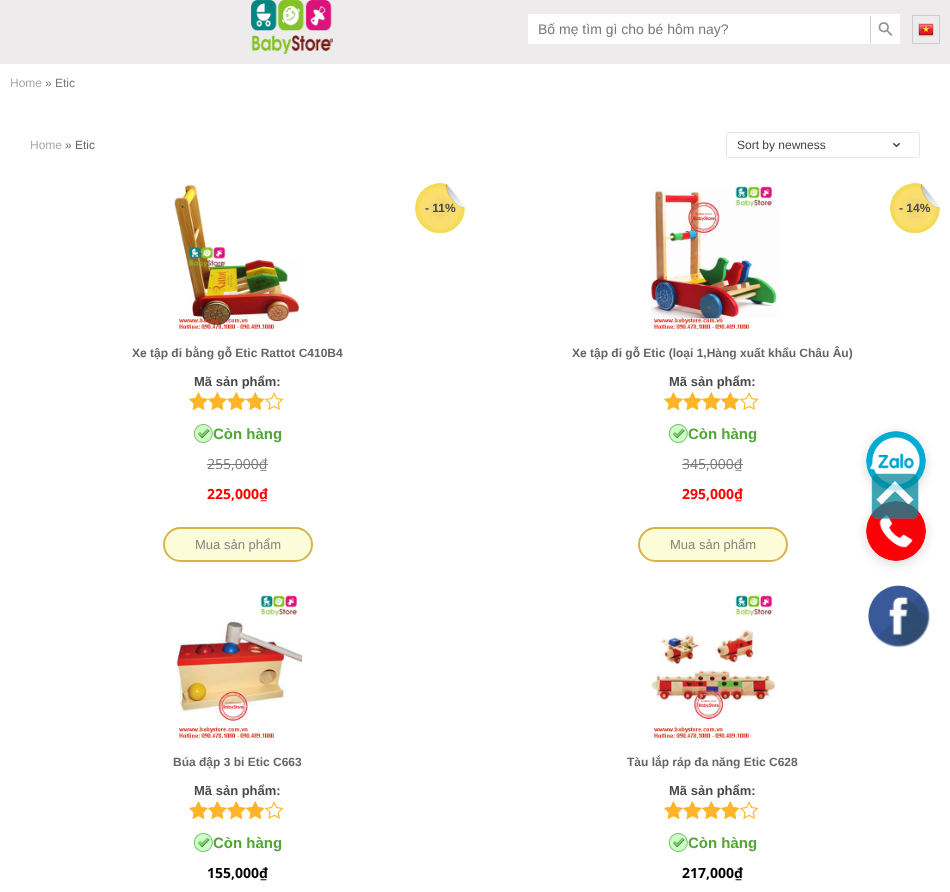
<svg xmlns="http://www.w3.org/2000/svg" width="950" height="892">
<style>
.a{font:14px Liberation Sans;fill:#787878}
.b{font:12px Liberation Sans;fill:#aaa}
.c{font:12px Liberation Sans;fill:#787878}
.d{font:12px Liberation Sans;fill:#666}
.e{font:12px Liberation Sans;fill:#444}
.f{font:bold 12px Liberation Sans;fill:#4a4a4a}
.g{font:bold 12px Liberation Sans;fill:#666}
.h{font:bold 13px Liberation Sans;fill:#4a4a4a}
.i{font:bold 15px Liberation Sans;fill:#52a536}
.j{font:14px Open Sans;fill:#787878}
.k{font:bold 14px Open Sans;fill:#f00}
.l{font:13px Liberation Sans;fill:#858585}
.m{font:bold 14px Open Sans;fill:#000}
</style>
<rect width="100%" height="100%" fill="#fff"/>
<path fill="#edebeb" d="M0 0h950v64H0z"/>
<image href="1.png" x="251" y="0" width="82" height="54"/>
<path fill="#fff" d="M528 14h372v30H528z"/>
<image href="2.png" x="878" y="22" width="15" height="14"/>
<path fill="#ccc" d="M870 16h1v27H870z"/>
<path fill="none" stroke="#ccc" d="M912.5 15.5h27v28H912.5z"/>
<image href="3.png" x="918" y="23" width="16" height="14"/>
<image href="4.png" x="893" y="143" width="7" height="4"/>
<rect fill="none" stroke="#e5e5e5" x="726.5" y="132.5" width="193" height="25" rx="2.5"/>
<image href="5.png" x="174" y="184" width="126" height="145"/>
<image href="6.png" x="415" y="183" width="50" height="50"/>
<image href="7.png" x="189" y="392" width="95" height="18"/>
<image href="8.png" x="189" y="392" width="73" height="18"/>
<image href="9.png" x="193" y="424" width="20" height="19"/>
<path fill="#787878" d="M207 464h61v1H207z"/>
<rect fill="#fcfcd8" stroke="#d8b345" stroke-width="2" x="164" y="528" width="148" height="33" rx="16.5"/>
<image href="10.png" x="650" y="186" width="127" height="143"/>
<image href="11.png" x="890" y="183" width="50" height="50"/>
<image href="7.png" x="664" y="392" width="95" height="18"/>
<image href="8.png" x="664" y="392" width="73" height="18"/>
<image href="9.png" x="668" y="424" width="20" height="19"/>
<path fill="#787878" d="M682 464h61v1H682z"/>
<rect fill="#fcfcd8" stroke="#d8b345" stroke-width="2" x="639" y="528" width="148" height="33" rx="16.5"/>
<image href="12.png" x="176" y="595" width="126" height="143"/>
<image href="7.png" x="189" y="801" width="95" height="18"/>
<image href="8.png" x="189" y="801" width="73" height="18"/>
<image href="9.png" x="193" y="833" width="20" height="19"/>
<image href="13.png" x="651" y="595" width="125" height="143"/>
<image href="7.png" x="664" y="801" width="95" height="18"/>
<image href="8.png" x="664" y="801" width="73" height="18"/>
<image href="9.png" x="668" y="833" width="20" height="19"/>
<rect fill="#00000026" filter="blur(6px)" x="866" y="434" width="60" height="60" rx="30"/>
<circle fill="#fff" cx="896" cy="461" r="30"/>
<image href="14.png" x="866" y="431" width="60" height="60"/>
<rect fill="#00000026" filter="blur(6px)" x="866" y="504" width="60" height="60" rx="30"/>
<circle fill="#fff" cx="896" cy="531" r="30"/>
<image href="16.png" x="866" y="501" width="60" height="60"/>
<image href="15.png" x="871" y="473" width="48" height="46"/>
<image href="17.png" x="868" y="585" width="62" height="63"/>
<text class="a" x="538" y="34">Bố mẹ tìm gì cho bé hôm nay?</text>
<text class="b" x="10" y="87">Home</text>
<text class="c" x="45" y="87">» Etic</text>
<text class="b" x="30" y="149">Home</text>
<text class="d" x="65" y="149">» Etic</text>
<text class="e" x="737" y="149">Sort by newness</text>
<text class="f" x="425" y="212">- 11%</text>
<text class="g" x="132" y="357">Xe tập đi bằng gỗ Etic Rattot C410B4</text>
<text class="h" x="194" y="386">Mã sản phẩm:</text>
<text class="i" x="213" y="439">Còn hàng</text>
<text class="j" x="207" y="469">255,000₫</text>
<text class="k" x="207" y="499">225,000₫</text>
<text class="l" x="195" y="549">Mua sản phẩm</text>
<text class="f" x="899" y="212">- 14%</text>
<text class="g" x="572" y="357">Xe tập đi gỗ Etic (loại 1,Hàng xuất khẩu Châu Âu)</text>
<text class="h" x="669" y="386">Mã sản phẩm:</text>
<text class="i" x="688" y="439">Còn hàng</text>
<text class="j" x="682" y="469">345,000₫</text>
<text class="k" x="682" y="499">295,000₫</text>
<text class="l" x="670" y="549">Mua sản phẩm</text>
<text class="g" x="173" y="766">Búa đập 3 bi Etic C663</text>
<text class="h" x="194" y="795">Mã sản phẩm:</text>
<text class="i" x="213" y="848">Còn hàng</text>
<text class="m" x="207" y="878">155,000₫</text>
<text class="g" x="627" y="766">Tàu lắp ráp đa năng Etic C628</text>
<text class="h" x="669" y="795">Mã sản phẩm:</text>
<text class="i" x="688" y="848">Còn hàng</text>
<text class="m" x="682" y="878">217,000₫</text>
</svg>
